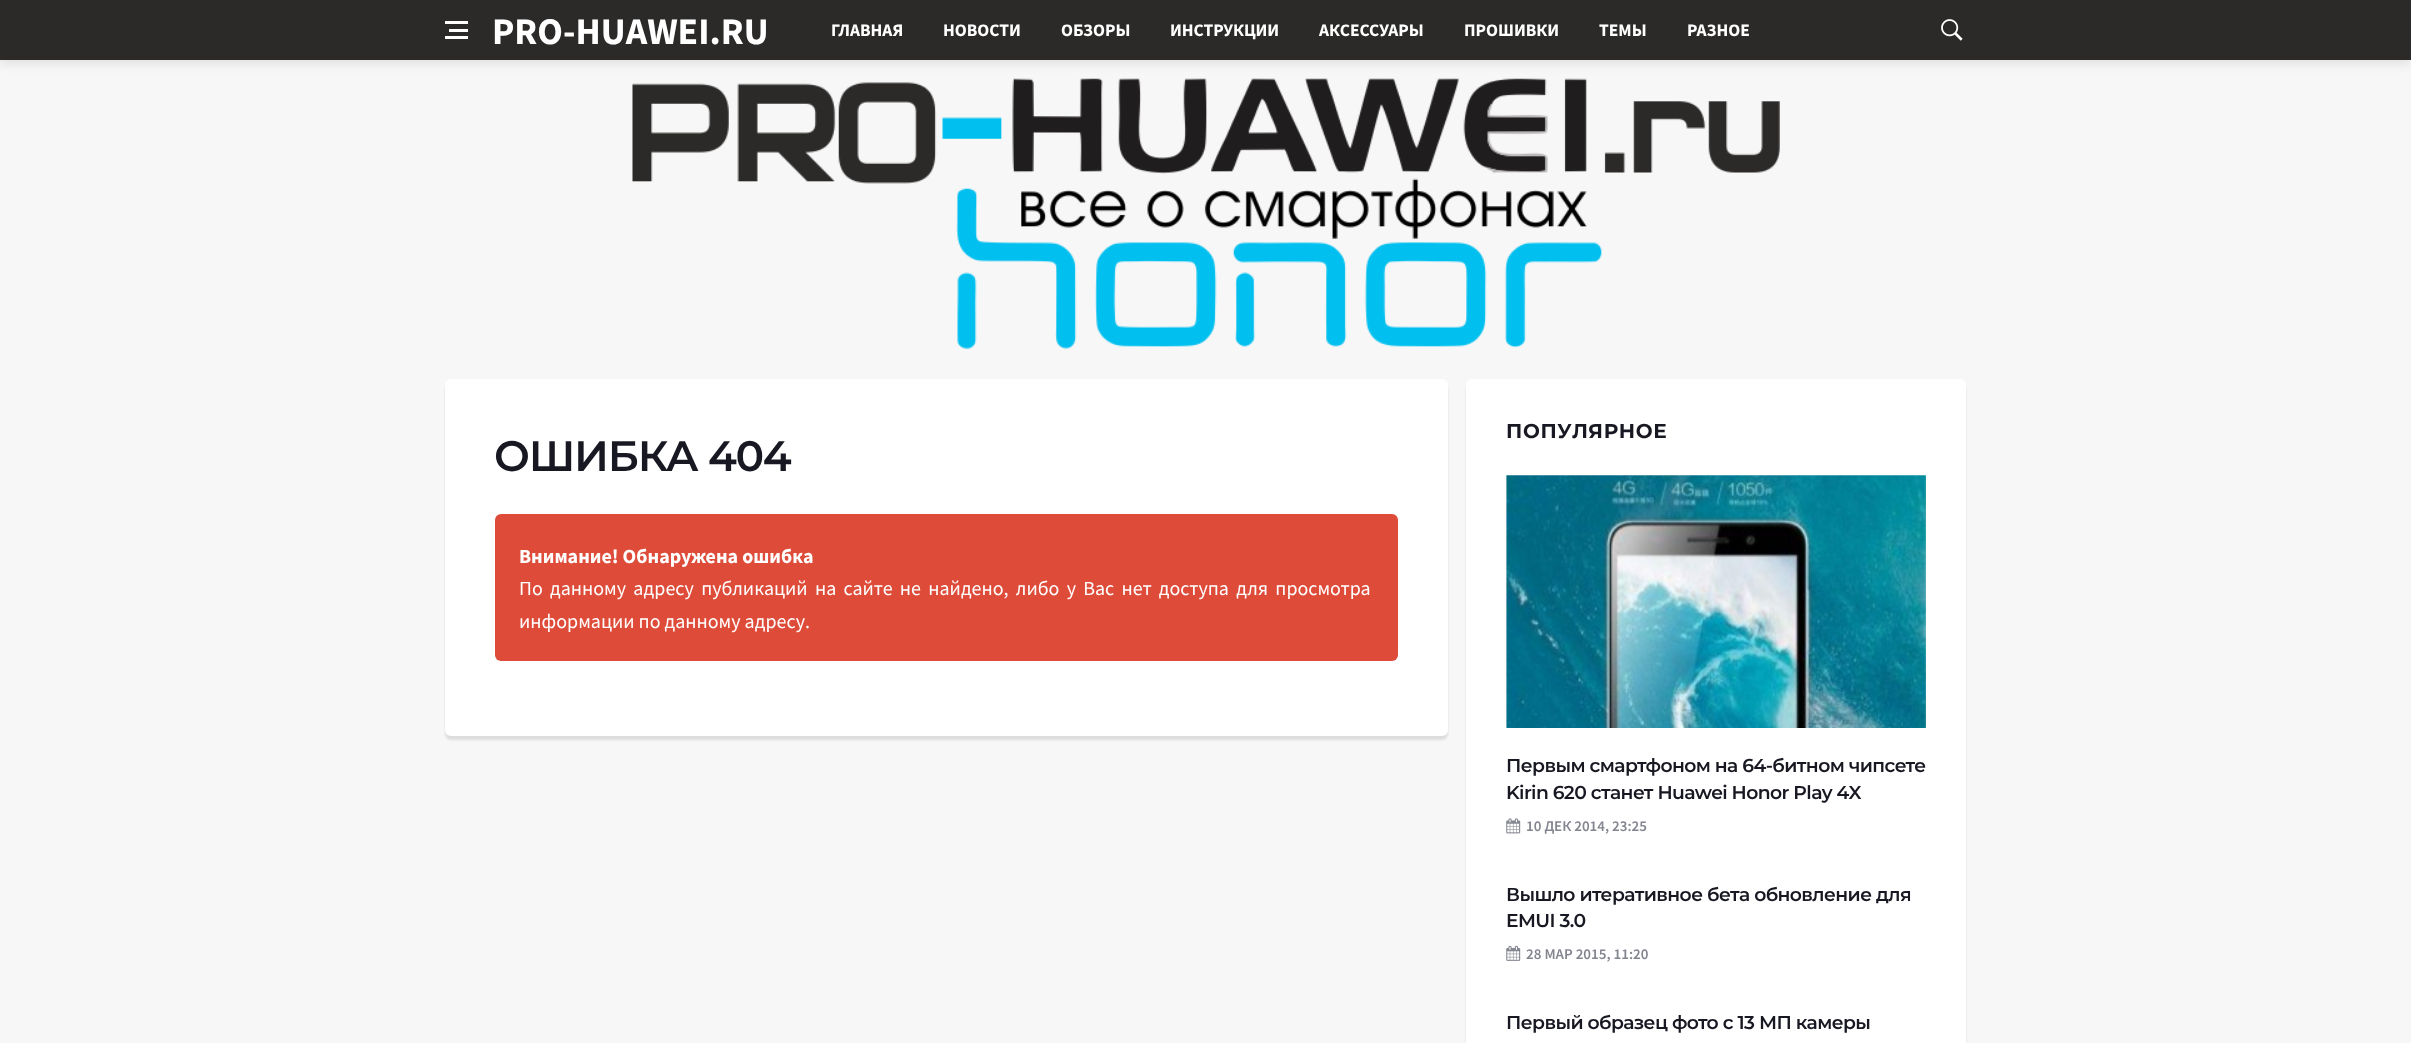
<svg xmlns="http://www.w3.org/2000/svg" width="2411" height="1043">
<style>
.a{font:bold 37.5px Source Sans Pro;fill:#fff}
.b{font:bold 17.5px Source Sans Pro;fill:#fff}
.c{font:600 42.5px Montserrat;letter-spacing:-1.25px;fill:#171821}
.d{font:bold 20px Source Sans Pro;fill:#fff}
.e{font:20px Source Sans Pro;fill:#fff}
.f{font:bold 20px Montserrat;letter-spacing:0.75px;fill:#171821}
.g{font:600 18.75px Montserrat;letter-spacing:-0.6px;fill:#171821}
.h{font:600 15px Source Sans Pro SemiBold;fill:#83858f}
</style>
<rect width="100%" height="100%" fill="#f7f7f7"/>
<image href="2.png" x="632" y="78" width="1148" height="271"/>
<path fill="#0000001a" filter="blur(6px)" d="M0 3h2411v60H0z"/>
<path fill="#2b2a29" d="M0 0h2411v60H0z"/>
<path fill="#fff" d="M449 29h19v3H449z"/>
<path fill="#fff" d="M445 21h23v3H445z"/>
<path fill="#fff" d="M445 36h23v3H445z"/>
<image href="1.png" x="1941" y="19" width="22" height="22"/>
<rect fill="#0000001a" filter="blur(1px)" x="445" y="383" width="1003" height="357" rx="6"/>
<rect fill="#fff" x="445" y="379" width="1003" height="357" rx="6"/>
<rect fill="#de4b39" x="495" y="514" width="903" height="147" rx="6"/>
<rect fill="#0000001a" filter="blur(1px)" x="1466" y="383" width="500" height="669" rx="6"/>
<rect fill="#fff" x="1466" y="379" width="500" height="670" rx="6"/>
<path fill="#f7f7f7" d="M1506 475h420v253H1506z"/>
<image href="3.png" x="1506" y="475" width="420" height="253"/>
<image href="4.png" x="1506" y="818" width="15" height="16"/>
<image href="5.png" x="1506" y="945" width="15" height="16"/>
<text class="a" x="492" y="44">PRO-HUAWEI.RU</text>
<text class="b" x="831" y="36">ГЛАВНАЯ</text>
<text class="b" x="943" y="36">НОВОСТИ</text>
<text class="b" x="1061" y="36">ОБЗОРЫ</text>
<text class="b" x="1170" y="36">ИНСТРУКЦИИ</text>
<text class="b" x="1319" y="36">АКСЕССУАРЫ</text>
<text class="b" x="1464" y="36">ПРОШИВКИ</text>
<text class="b" x="1599" y="36">ТЕМЫ</text>
<text class="b" x="1687" y="36">РАЗНОЕ</text>
<text class="c" x="494" y="471">ОШИБКА 404</text>
<text class="d" x="519" y="563">Внимание! Обнаружена ошибка</text>
<text class="e" x="519" y="595" word-spacing="3.25">По данному адресу публикаций на сайте не найдено, либо у Вас нет доступа для просмотра</text>
<text class="e" x="519" y="628">информации по данному адресу.</text>
<text class="f" x="1506" y="438">ПОПУЛЯРНОЕ</text>
<text class="g" x="1506" y="772">Первым смартфоном на 64-битном чипсете</text>
<text class="g" x="1506" y="799">Kirin 620 станет Huawei Honor Play 4X</text>
<text class="h" x="1526" y="831">10 ДЕК 2014, 23:25</text>
<text class="g" x="1506" y="901">Вышло итеративное бета обновление для</text>
<text class="g" x="1506" y="927">EMUI 3.0</text>
<text class="h" x="1526" y="959">28 МАР 2015, 11:20</text>
<text class="g" x="1506" y="1029">Первый образец фото с 13 МП камеры</text>
</svg>
